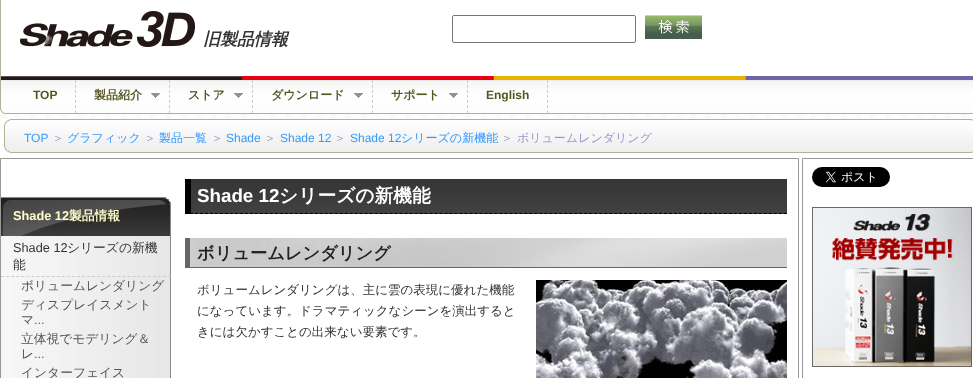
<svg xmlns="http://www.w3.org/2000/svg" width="973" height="378">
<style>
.a{font:italic bold 17px WenQuanYi Zen Hei;fill:#333}
.b{font:bold 12px Liberation Sans;fill:#552}
.c{font:bold 12px WenQuanYi Zen Hei;fill:#552}
.d{font:12px Liberation Sans;fill:#39f}
.e{font:500 12px WenQuanYi Zen Hei;fill:#99c}
.f{font:500 12px WenQuanYi Zen Hei;fill:#39f}
.g{font:bold 12.75px Liberation Sans;fill:#ffc}
.h{font:bold 12.75px WenQuanYi Zen Hei;fill:#ffc}
.i{font:12.75px Liberation Sans;fill:#333}
.j{font:500 12.75px WenQuanYi Zen Hei;fill:#333}
.k{font:500 12.75px WenQuanYi Zen Hei;fill:#555}
.l{font:12.75px Liberation Sans;fill:#555}
.m{font:bold 18.75px Liberation Sans;fill:#fff}
.n{font:bold 18.75px WenQuanYi Zen Hei;fill:#fff}
.o{font:bold 17.25px WenQuanYi Zen Hei;fill:#222}
.p{font:500 12.5px WenQuanYi Zen Hei;fill:#333}
</style>
<defs>
<clipPath id="clip1"><path d="M0 127h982v16H0z"/></clipPath>
</defs>
<rect width="100%" height="100%" fill="#fff"/>
<image href="1.png" x="0" y="114" width="973" height="21"/>
<image href="2.png" x="0" y="0" width="973" height="80"/>
<image href="3.png" x="20" y="11" width="175" height="36"/>
<rect fill="none" stroke="#767676" x="452.5" y="15.5" width="183" height="27" rx="1.5"/>
<image href="4.png" x="645" y="15" width="57" height="24"/>
<image href="5.png" x="0" y="80" width="973" height="34"/>
<path fill="none" stroke="#ccd" stroke-dasharray="3 2" d="M75.5 80v33"/>
<path fill="none" stroke="#ccd" stroke-dasharray="3 2" d="M169.5 80v33"/>
<image href="6.png" x="151" y="93" width="9" height="5"/>
<path fill="none" stroke="#ccd" stroke-dasharray="3 2" d="M252.5 80v33"/>
<image href="6.png" x="234" y="93" width="9" height="5"/>
<path fill="none" stroke="#ccd" stroke-dasharray="3 2" d="M372.5 80v33"/>
<image href="6.png" x="354" y="93" width="9" height="5"/>
<path fill="none" stroke="#ccd" stroke-dasharray="3 2" d="M467.5 80v33"/>
<image href="6.png" x="449" y="93" width="9" height="5"/>
<path fill="none" stroke="#ccd" stroke-dasharray="3 2" d="M547.5 80v33"/>
<image href="7.png" x="4" y="119" width="969" height="34"/>
<path fill="none" stroke="#999" d="M0.5 158.5h798v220H0.5z"/>
<image href="8.png" x="1" y="197" width="170" height="39"/>
<image href="9.png" x="1" y="236" width="170" height="41"/>
<path fill="none" stroke="#ccc" stroke-dasharray="3 2.06" d="M1 276.5h170"/>
<image href="10.png" x="1" y="277" width="170" height="19"/>
<image href="11.png" x="1" y="296" width="170" height="34"/>
<image href="11.png" x="1" y="330" width="170" height="34"/>
<image href="12.png" x="1" y="364" width="170" height="14"/>
<image href="13.png" x="191" y="179" width="596" height="35"/>
<path fill="none" stroke="#000" stroke-dasharray="3 1.99" d="M185 213.5h602"/>
<path fill="#000" d="M185 179h6v35H185z"/>
<image href="14.png" x="190" y="238" width="597" height="29"/>
<path fill="#666" d="M185 267h602v1H185z"/>
<path fill="#666" d="M185 238h5v30H185z"/>
<image href="15.png" x="536" y="280" width="251" height="98"/>
<path fill="none" stroke="#999" d="M802.5 158.5h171v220H802.5z"/>
<image href="16.png" x="812" y="167" width="78" height="20"/>
<image href="17.png" x="812" y="207" width="160" height="160"/>
<text class="a" x="203" y="45">旧製品情報</text>
<text class="b" x="33" y="99">TOP</text>
<text class="c" x="94" y="99">製品紹介</text>
<text class="c" x="188" y="99">ストア</text>
<text class="c" x="271" y="99">ダウンロード</text>
<text class="c" x="391" y="99">サポート</text>
<text class="b" x="486" y="99">English</text>
<text class="d" x="24" y="142">TOP</text>
<text class="e" x="52" y="142">＞</text>
<g clip-path="url(#clip1)">
<text class="f" x="67" y="142">グラフィック</text>
</g>
<text class="e" x="144" y="142">＞</text>
<g clip-path="url(#clip1)">
<text class="f" x="159" y="142">製品一覧</text>
</g>
<text class="e" x="211" y="142">＞</text>
<text class="d" x="226" y="142">Shade</text>
<text class="e" x="264" y="142">＞</text>
<text class="d" x="280" y="142">Shade 12</text>
<text class="e" x="334" y="142">＞</text>
<text class="d" x="350" y="142">Shade 12</text>
<g clip-path="url(#clip1)">
<text class="f" x="401" y="142">シリーズの新機能</text>
</g>
<text class="e" x="501" y="142">＞</text>
<g clip-path="url(#clip1)">
<text class="e" x="517" y="142">ボリュームレンダリング</text>
</g>
<text class="g" x="13" y="220">Shade 12</text>
<text class="h" x="69" y="220">製品情報</text>
<text class="i" x="13" y="252">Shade 12</text>
<text class="j" x="67" y="252">シリーズの新機</text>
<text class="j" x="13" y="269">能</text>
<text class="k" x="21" y="290">ボリュームレンダリング</text>
<text class="k" x="21" y="309">ディスプレイスメント</text>
<text class="k" x="21" y="324">マ</text>
<text class="l" x="34" y="324">...</text>
<text class="k" x="21" y="343">立体視でモデリング＆</text>
<text class="k" x="21" y="358">レ</text>
<text class="l" x="34" y="358">...</text>
<text class="k" x="21" y="377">インターフェイス</text>
<text class="m" x="197" y="202">Shade 12</text>
<text class="n" x="279" y="202">シリーズの新機能</text>
<text class="o" x="197" y="259">ボリュームレンダリング</text>
<text class="p" x="197" y="294">ボリュームレンダリングは、主に雲の表現に優れた機能</text>
<text class="p" x="197" y="315">になっています。ドラマティックなシーンを演出すると</text>
<text class="p" x="197" y="336">きには欠かすことの出来ない要素です。</text>
</svg>
